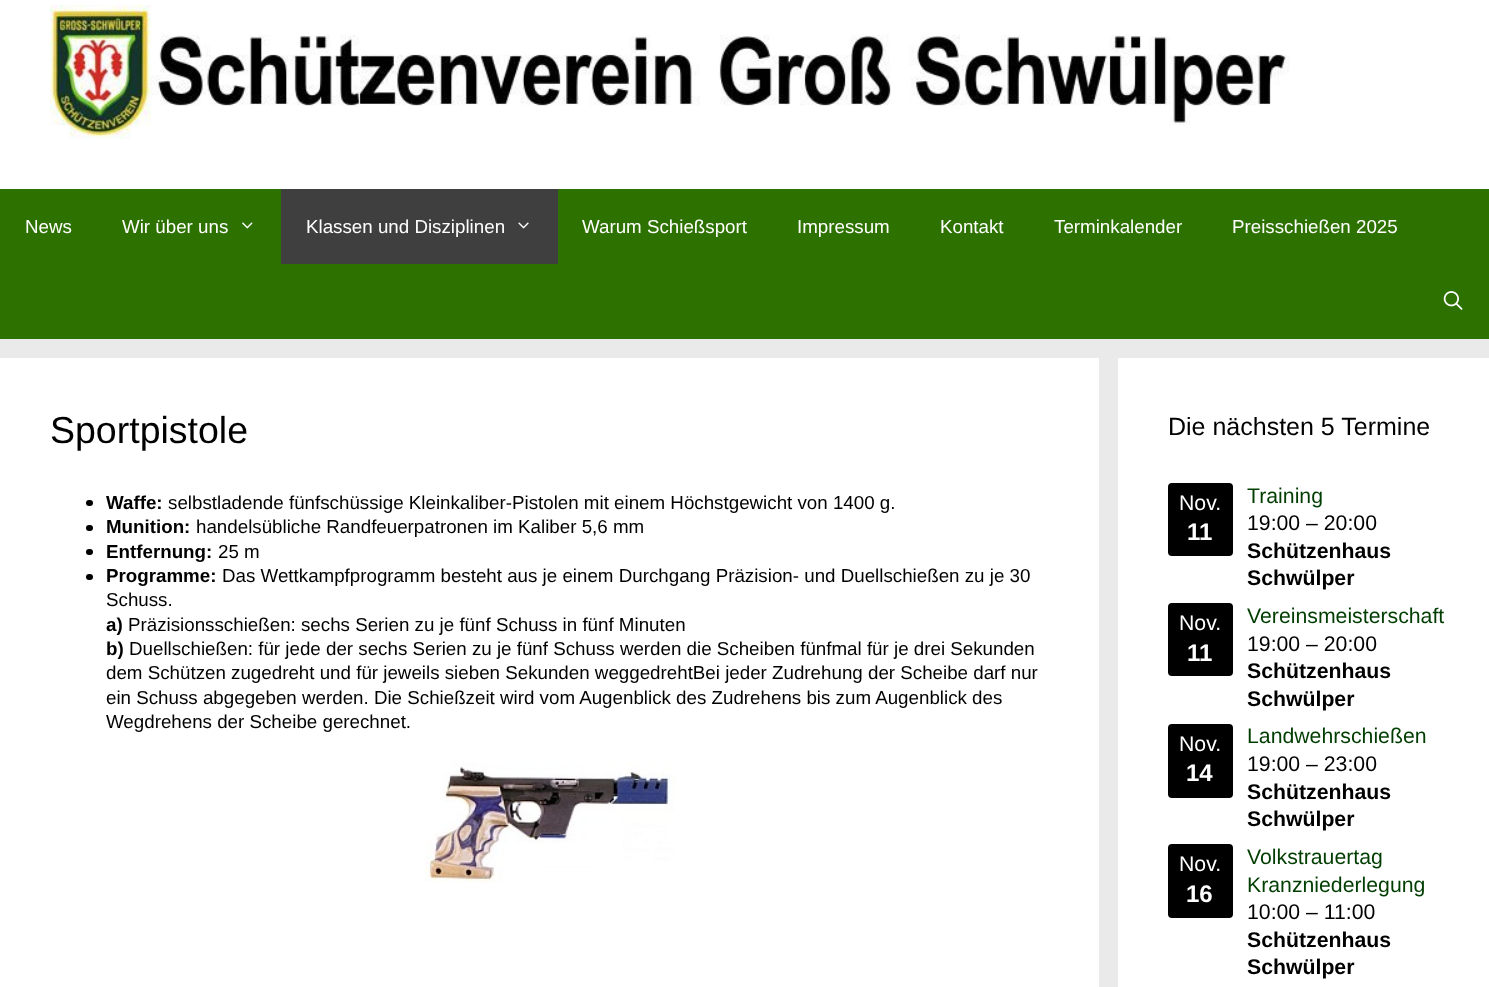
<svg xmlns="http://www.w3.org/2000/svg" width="1489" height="987">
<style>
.a{font:18.75px Liberation Sans;fill:#fff}
.b{font:37.5px Liberation Sans;fill:#000}
.c{font:bold 18.75px Liberation Sans;fill:#000}
.d{font:18.75px Liberation Sans;fill:#000}
.e{font:25px Liberation Sans;fill:#000}
.f{font:21.25px Liberation Sans;fill:#fff}
.g{font:bold 24px Liberation Sans;fill:#fff}
.h{font:21.25px Liberation Sans;fill:#003d00}
.i{font:21.25px Liberation Sans;fill:#000}
.j{font:bold 21.25px Liberation Sans;fill:#000}
</style>
<rect width="100%" height="100%" fill="#eaeaea"/>
<path fill="#fff" d="M0 0h1489v189H0z"/>
<image href="1.png" x="50" y="5" width="1240" height="134"/>
<path fill="#2d7200" d="M0 189h1489v150H0z"/>
<image href="2.png" x="242" y="222" width="11" height="7"/>
<path fill="#3f3f3f" d="M281 189h277v75H281z"/>
<image href="3.png" x="518" y="222" width="11" height="7"/>
<image href="4.png" x="1443" y="291" width="20" height="19"/>
<path fill="#fff" d="M0 358h1099v629H0z"/>
<rect fill="#000" x="86" y="500" width="7" height="6" rx="3"/>
<rect fill="#000" x="86" y="525" width="7" height="6" rx="3"/>
<rect fill="#000" x="86" y="549" width="7" height="6" rx="3"/>
<rect fill="#000" x="86" y="574" width="7" height="6" rx="3"/>
<image href="5.png" x="425" y="762" width="250" height="121"/>
<path fill="#fff" d="M1118 358h371v629H1118z"/>
<rect fill="#000" x="1168" y="483" width="65" height="73" rx="4"/>
<rect fill="#000" x="1168" y="603" width="65" height="73" rx="4"/>
<rect fill="#000" x="1168" y="724" width="65" height="74" rx="4"/>
<rect fill="#000" x="1168" y="844" width="65" height="74" rx="4"/>
<text class="a" x="25" y="233">News</text>
<text class="a" x="122" y="233">Wir über uns</text>
<text class="a" x="306" y="233">Klassen und Disziplinen</text>
<text class="a" x="582" y="233">Warum Schießsport</text>
<text class="a" x="797" y="233">Impressum</text>
<text class="a" x="940" y="233">Kontakt</text>
<text class="a" x="1054" y="233">Terminkalender</text>
<text class="a" x="1232" y="233">Preisschießen 2025</text>
<text class="b" x="50" y="443">Sportpistole</text>
<text class="c" x="106" y="509">Waffe:</text>
<text class="d" x="168" y="509">selbstladende fünfschüssige Kleinkaliber-Pistolen mit einem Höchstgewicht von 1400 g.</text>
<text class="c" x="106" y="533">Munition:</text>
<text class="d" x="196" y="533">handelsübliche Randfeuerpatronen im Kaliber 5,6 mm</text>
<text class="c" x="106" y="558">Entfernung:</text>
<text class="d" x="218" y="558">25 m</text>
<text class="c" x="106" y="582">Programme:</text>
<text class="d" x="222" y="582">Das Wettkampfprogramm besteht aus je einem Durchgang Präzision- und Duellschießen zu je 30</text>
<text class="d" x="106" y="606">Schuss.</text>
<text class="c" x="106" y="631">a)</text>
<text class="d" x="128" y="631">Präzisionsschießen: sechs Serien zu je fünf Schuss in fünf Minuten</text>
<text class="c" x="106" y="655">b)</text>
<text class="d" x="129" y="655">Duellschießen: für jede der sechs Serien zu je fünf Schuss werden die Scheiben fünfmal für je drei Sekunden</text>
<text class="d" x="106" y="679">dem Schützen zugedreht und für jeweils sieben Sekunden weggedrehtBei jeder Zudrehung der Scheibe darf nur</text>
<text class="d" x="106" y="704">ein Schuss abgegeben werden. Die Schießzeit wird vom Augenblick des Zudrehens bis zum Augenblick des</text>
<text class="d" x="106" y="728">Wegdrehens der Scheibe gerechnet.</text>
<text class="e" x="1168" y="435">Die nächsten 5 Termine</text>
<text class="f" x="1179" y="510">Nov.</text>
<text class="g" x="1187" y="540">11</text>
<text class="h" x="1247" y="503">Training</text>
<text class="i" x="1247" y="530">19:00 – 20:00</text>
<text class="j" x="1247" y="558">Schützenhaus</text>
<text class="j" x="1247" y="585">Schwülper</text>
<text class="f" x="1179" y="630">Nov.</text>
<text class="g" x="1187" y="661">11</text>
<text class="h" x="1247" y="623">Vereinsmeisterschaft</text>
<text class="i" x="1247" y="651">19:00 – 20:00</text>
<text class="j" x="1247" y="678">Schützenhaus</text>
<text class="j" x="1247" y="706">Schwülper</text>
<text class="f" x="1179" y="751">Nov.</text>
<text class="g" x="1186" y="781">14</text>
<text class="h" x="1247" y="743">Landwehrschießen</text>
<text class="i" x="1247" y="771">19:00 – 23:00</text>
<text class="j" x="1247" y="799">Schützenhaus</text>
<text class="j" x="1247" y="826">Schwülper</text>
<text class="f" x="1179" y="871">Nov.</text>
<text class="g" x="1186" y="902">16</text>
<text class="h" x="1247" y="864">Volkstrauertag</text>
<text class="h" x="1247" y="892">Kranzniederlegung</text>
<text class="i" x="1247" y="919">10:00 – 11:00</text>
<text class="j" x="1247" y="947">Schützenhaus</text>
<text class="j" x="1247" y="974">Schwülper</text>
</svg>
